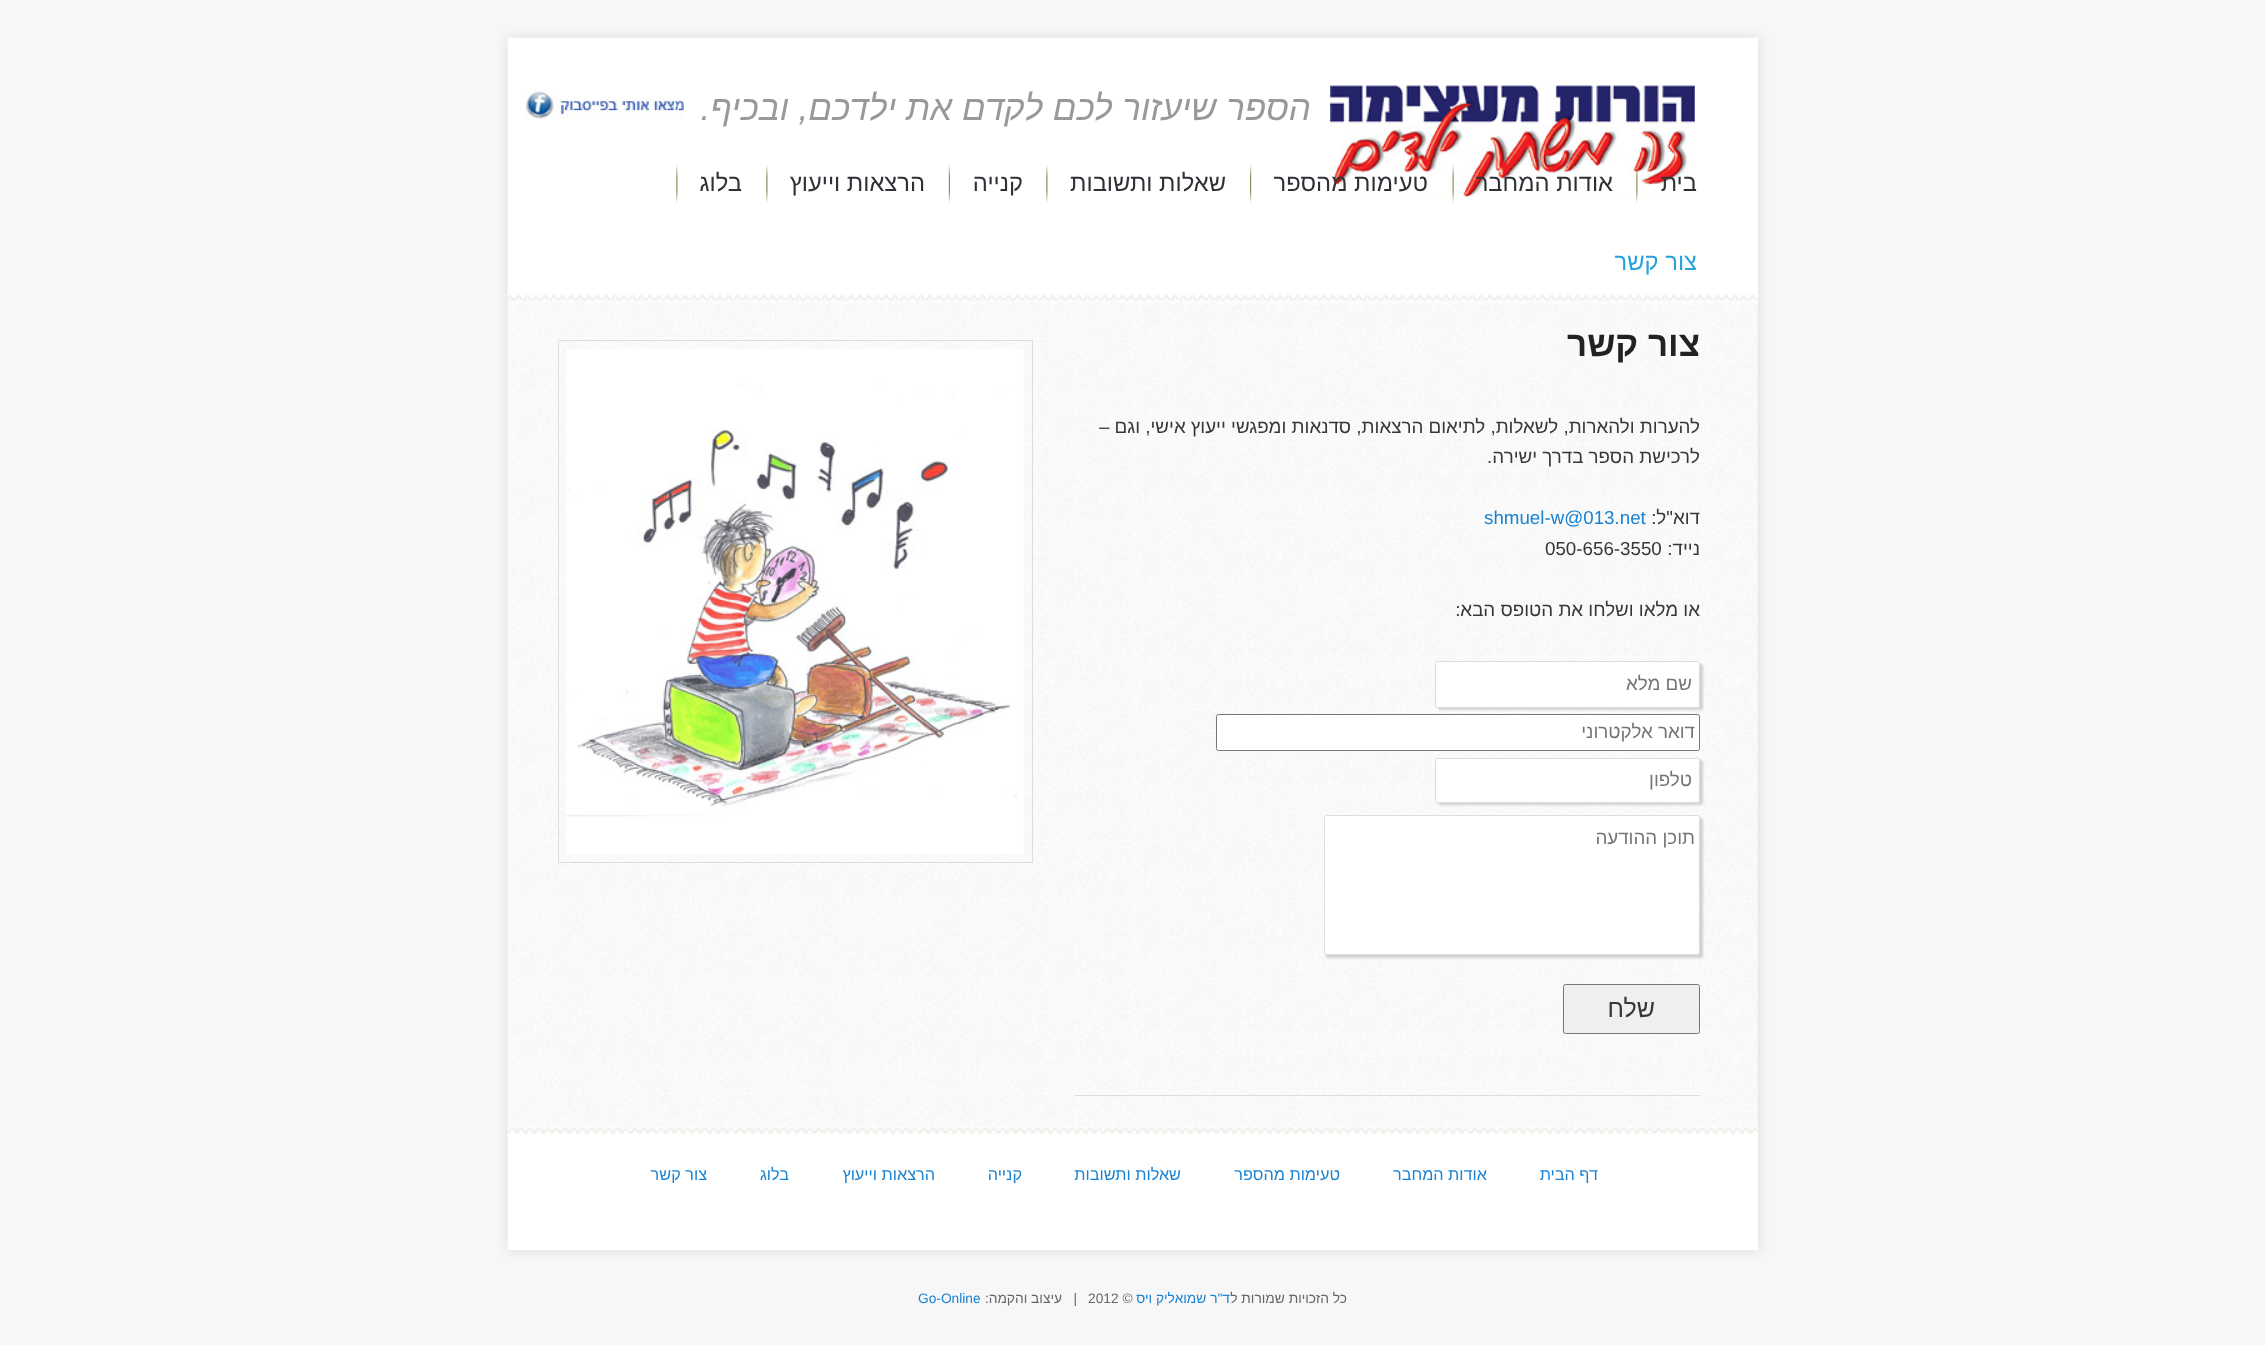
<svg xmlns="http://www.w3.org/2000/svg" width="2265" height="1345">
<style>
.a{font:italic 35px Liberation Sans;direction:rtl;fill:#999}
.b{font:23.75px Liberation Sans;direction:rtl;fill:#2e3237}
.c{font:23.75px Liberation Sans;direction:rtl;fill:#26a2dc}
.d{font:bold 35px Liberation Sans;direction:rtl;fill:#222}
.e{font:18.75px Liberation Sans;direction:rtl;fill:#373737}
.f{font:18.75px Liberation Sans;fill:#1982d1}
.g{font:18.75px Liberation Sans;fill:#373737}
.h{font:18.75px Liberation Sans;direction:rtl;fill:#757575}
.i{font:25px Liberation Sans;direction:rtl;fill:#373737}
.j{font:16.25px Liberation Sans;direction:rtl;fill:#1982d1}
.k{font:13.75px Liberation Sans;direction:rtl;fill:#666}
.l{font:13.75px Liberation Sans;direction:rtl;fill:#1982d1}
.m{font:13.75px Liberation Sans;fill:#666}
.n{font:13.75px Liberation Sans;fill:#1982d1}
</style>
<rect width="100%" height="100%" fill="#f7f7f7"/>
<path fill="#c4c4ba99" filter="blur(6px)" d="M508 38h1250v1212H508z"/>
<image href="1.png" x="507" y="37" width="1251" height="1213"/>
<path fill="#fff" d="M508 38h1250v265H508z"/>
<image href="2.png" x="507" y="293" width="1251" height="10"/>
<image href="3.png" x="1330" y="85" width="365" height="112"/>
<image href="4.png" x="524" y="89" width="160" height="30"/>
<image href="5.png" x="1636" y="165" width="2" height="38"/>
<image href="6.png" x="1452" y="165" width="2" height="38"/>
<image href="7.png" x="1250" y="165" width="2" height="38"/>
<image href="8.png" x="1046" y="165" width="2" height="38"/>
<image href="9.png" x="948" y="165" width="2" height="38"/>
<image href="8.png" x="766" y="165" width="2" height="38"/>
<image href="8.png" x="676" y="165" width="2" height="38"/>
<image href="10.png" x="1133" y="303" width="625" height="823"/>
<path fill="#ddd" d="M1075 1095h625v1H1075z"/>
<rect fill="#d0d0d0" filter="blur(1px)" x="1438" y="664" width="265" height="46" rx="2.5"/>
<rect fill="#fff" stroke="#ddd" x="1435.5" y="661.5" width="264" height="46" rx="2"/>
<rect fill="#fff" stroke="#767676" x="1216.5" y="714.5" width="483" height="36" rx="2"/>
<rect fill="#d0d0d0" filter="blur(1px)" x="1438" y="760" width="265" height="45" rx="2.5"/>
<rect fill="#fff" stroke="#ddd" x="1435.5" y="758.5" width="264" height="44" rx="2"/>
<rect fill="#d0d0d0" filter="blur(1px)" x="1326" y="818" width="377" height="140" rx="2.5"/>
<rect fill="#fff" stroke="#ddd" x="1324.5" y="815.5" width="375" height="139" rx="2"/>
<rect fill="#efefef" stroke="#767676" x="1563.5" y="984.5" width="136" height="49" rx="2"/>
<path fill="none" stroke="#ddd" d="M558.5 340.5h474v522H558.5z"/>
<image href="11.png" x="566" y="349" width="458" height="505"/>
<path fill="#fff" d="M508 1126h1250v124H508z"/>
<image href="12.png" x="507" y="1126" width="1251" height="10"/>
<text class="a" x="1311" y="120">הספר שיעזור לכם לקדם את ילדכם, ובכיף.</text>
<text class="b" x="1697" y="191">בית</text>
<text class="b" x="1613" y="191">אודות המחבר</text>
<text class="b" x="1428" y="191">טעימות מהספר</text>
<text class="b" x="1226" y="191">שאלות ותשובות</text>
<text class="b" x="1023" y="191">קנייה</text>
<text class="b" x="925" y="191">הרצאות וייעוץ</text>
<text class="b" x="742" y="191">בלוג</text>
<text class="c" x="1697" y="270">צור קשר</text>
<text class="d" x="1700" y="356">צור קשר</text>
<text class="e" x="1700" y="433">להערות ולהארות, לשאלות, לתיאום הרצאות, סדנאות ומפגשי ייעוץ אישי, וגם –</text>
<text class="e" x="1700" y="463">לרכישת הספר בדרך ישירה.</text>
<text class="e" x="1700" y="524">דוא"ל:</text>
<text class="f" x="1484" y="524">shmuel-w@013.net</text>
<text class="e" x="1700" y="555">נייד:</text>
<text class="g" x="1545" y="555">050-656-3550</text>
<text class="e" x="1700" y="616">או מלאו ושלחו את הטופס הבא:</text>
<text class="h" x="1692" y="690">שם מלא</text>
<text class="h" x="1695" y="738">דואר אלקטרוני</text>
<text class="h" x="1692" y="786">טלפון</text>
<text class="h" x="1695" y="844">תוכן ההודעה</text>
<text class="i" x="1655" y="1017">שלח</text>
<text class="j" x="1598" y="1180">דף הבית</text>
<text class="j" x="1487" y="1180">אודות המחבר</text>
<text class="j" x="1340" y="1180">טעימות מהספר</text>
<text class="j" x="1181" y="1180">שאלות ותשובות</text>
<text class="j" x="1022" y="1180">קנייה</text>
<text class="j" x="935" y="1180">הרצאות וייעוץ</text>
<text class="j" x="789" y="1180">בלוג</text>
<text class="j" x="707" y="1180">צור קשר</text>
<text class="k" x="1347" y="1303">כל הזכויות שמורות ל</text>
<text class="l" x="1230" y="1303">ד"ר שמואליק ויס</text>
<text class="m" x="1088" y="1303">2012 ©</text>
<text class="k" xml:space="preserve" x="1077" y="1303">|   עיצוב והקמה:</text>
<text class="n" x="918" y="1303">Go-Online</text>
</svg>
